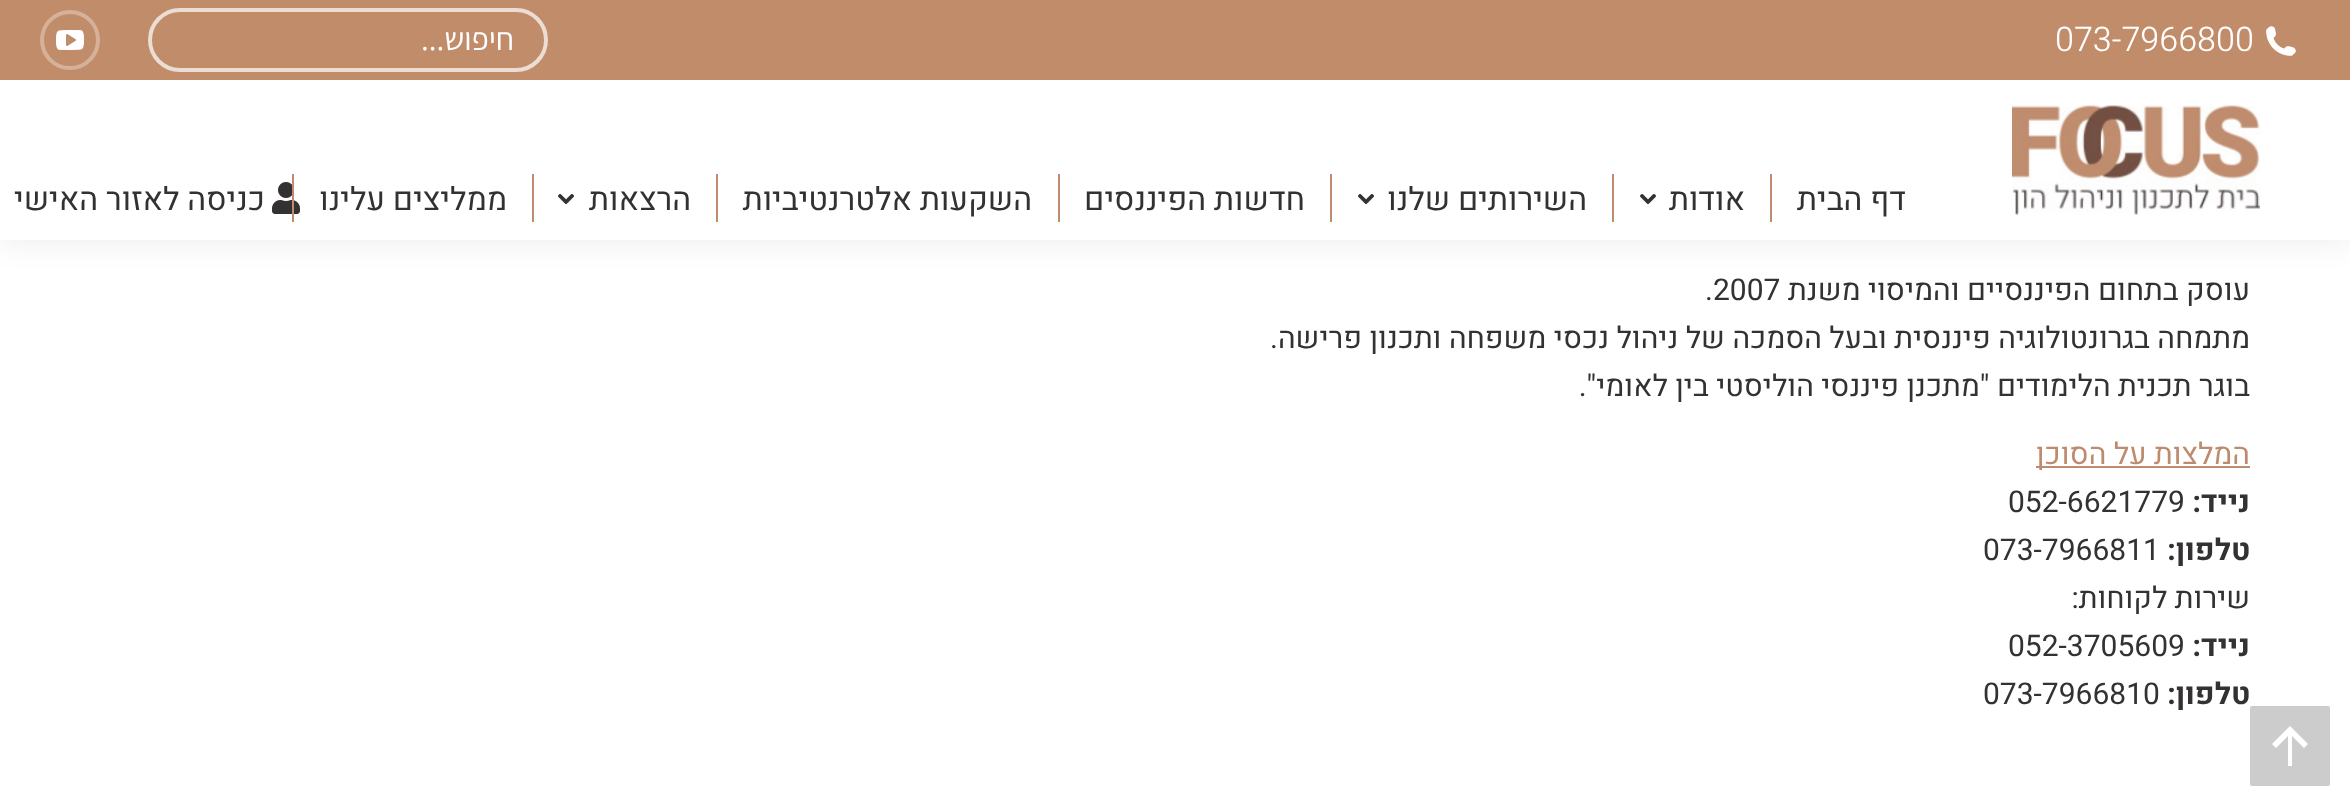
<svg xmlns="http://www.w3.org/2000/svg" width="2350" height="806">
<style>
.a{font:300 34px Heebo;fill:#fff}
.b{font:32px Assistant;direction:rtl;fill:#fff}
.c{font:32px Heebo;direction:rtl;fill:#333132}
.d{font:30px Heebo;direction:rtl;fill:#333132}
.e{font:30px Heebo;fill:#333132}
.f{font:30px Heebo;direction:rtl;fill:#bf8b6e}
.g{font:bold 30px Heebo;direction:rtl;fill:#333132}
</style>
<rect width="100%" height="100%" fill="#fff"/>
<path fill="#00000012" filter="blur(15px)" d="M-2 -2h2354v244H-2z"/>
<path fill="#fff" d="M0 80h2350v160H0z"/>
<path fill="#c18c6a" d="M0 0h2350v80H0z"/>
<image href="1.png" x="2266" y="26" width="30" height="30"/>
<rect fill="none" stroke="#ecddd2" stroke-width="4" x="150" y="10" width="396" height="60" rx="30"/>
<circle fill="none" stroke="#d5b19a" stroke-width="4" cx="70" cy="40" r="28"/>
<image href="2.png" x="56" y="30" width="28" height="20"/>
<image href="3.png" x="2012" y="105" width="248" height="110"/>
<path fill="#bf8b6e" d="M1770 174h2v48H1770z"/>
<image href="4.png" x="1640" y="194" width="16" height="10"/>
<path fill="#bf8b6e" d="M1612 174h2v48H1612z"/>
<image href="4.png" x="1358" y="194" width="16" height="10"/>
<path fill="#bf8b6e" d="M1330 174h2v48H1330z"/>
<path fill="#bf8b6e" d="M1058 174h2v48H1058z"/>
<path fill="#bf8b6e" d="M716 174h2v48H716z"/>
<image href="4.png" x="558" y="194" width="16" height="10"/>
<path fill="#bf8b6e" d="M532 174h2v48H532z"/>
<image href="5.png" x="272" y="182" width="28" height="32"/>
<path fill="#bf8b6e" d="M292 174h2v48H292z"/>
<path fill="#bf8b6e" d="M2036 466h214v2H2036z"/>
<rect fill="#ccc" x="2250" y="706" width="80" height="80" rx="2"/>
<path fill="#fff" d="M2272 744l4 4l12-12v30h4v-30l12 12l4-4l-18-18z"/>
<text class="a" x="2055" y="51">073-7966800</text>
<text class="b" x="514" y="50">חיפוש...</text>
<text class="c" x="1906" y="210">דף הבית</text>
<text class="c" x="1745" y="210">אודות</text>
<text class="c" x="1587" y="210">השירותים שלנו</text>
<text class="c" x="1305" y="210">חדשות הפיננסים</text>
<text class="c" x="1032" y="210">השקעות אלטרנטיביות</text>
<text class="c" x="691" y="210">הרצאות</text>
<text class="c" x="507" y="210">ממליצים עלינו</text>
<text class="c" x="265" y="210">כניסה לאזור האישי</text>
<text class="d" x="2250" y="300">עוסק בתחום הפיננסיים והמיסוי משנת</text>
<text class="e" x="1705" y="300">.2007</text>
<text class="d" x="2250" y="348">מתמחה בגרונטולוגיה פיננסית ובעל הסמכה של ניהול נכסי משפחה ותכנון פרישה.</text>
<text class="d" x="2250" y="396">בוגר תכנית הלימודים "מתכנן פיננסי הוליסטי בין לאומי".</text>
<text class="f" x="2250" y="464">המלצות על הסוכן</text>
<text class="g" x="2250" y="512">נייד:</text>
<text class="e" x="2008" y="512">052-6621779</text>
<text class="g" x="2250" y="560">טלפון:</text>
<text class="e" x="1983" y="560">073-7966811</text>
<text class="d" x="2250" y="608">שירות לקוחות:</text>
<text class="g" x="2250" y="656">נייד:</text>
<text class="e" x="2008" y="656">052-3705609</text>
<text class="g" x="2250" y="704">טלפון:</text>
<text class="e" x="1983" y="704">073-7966810</text>
</svg>
